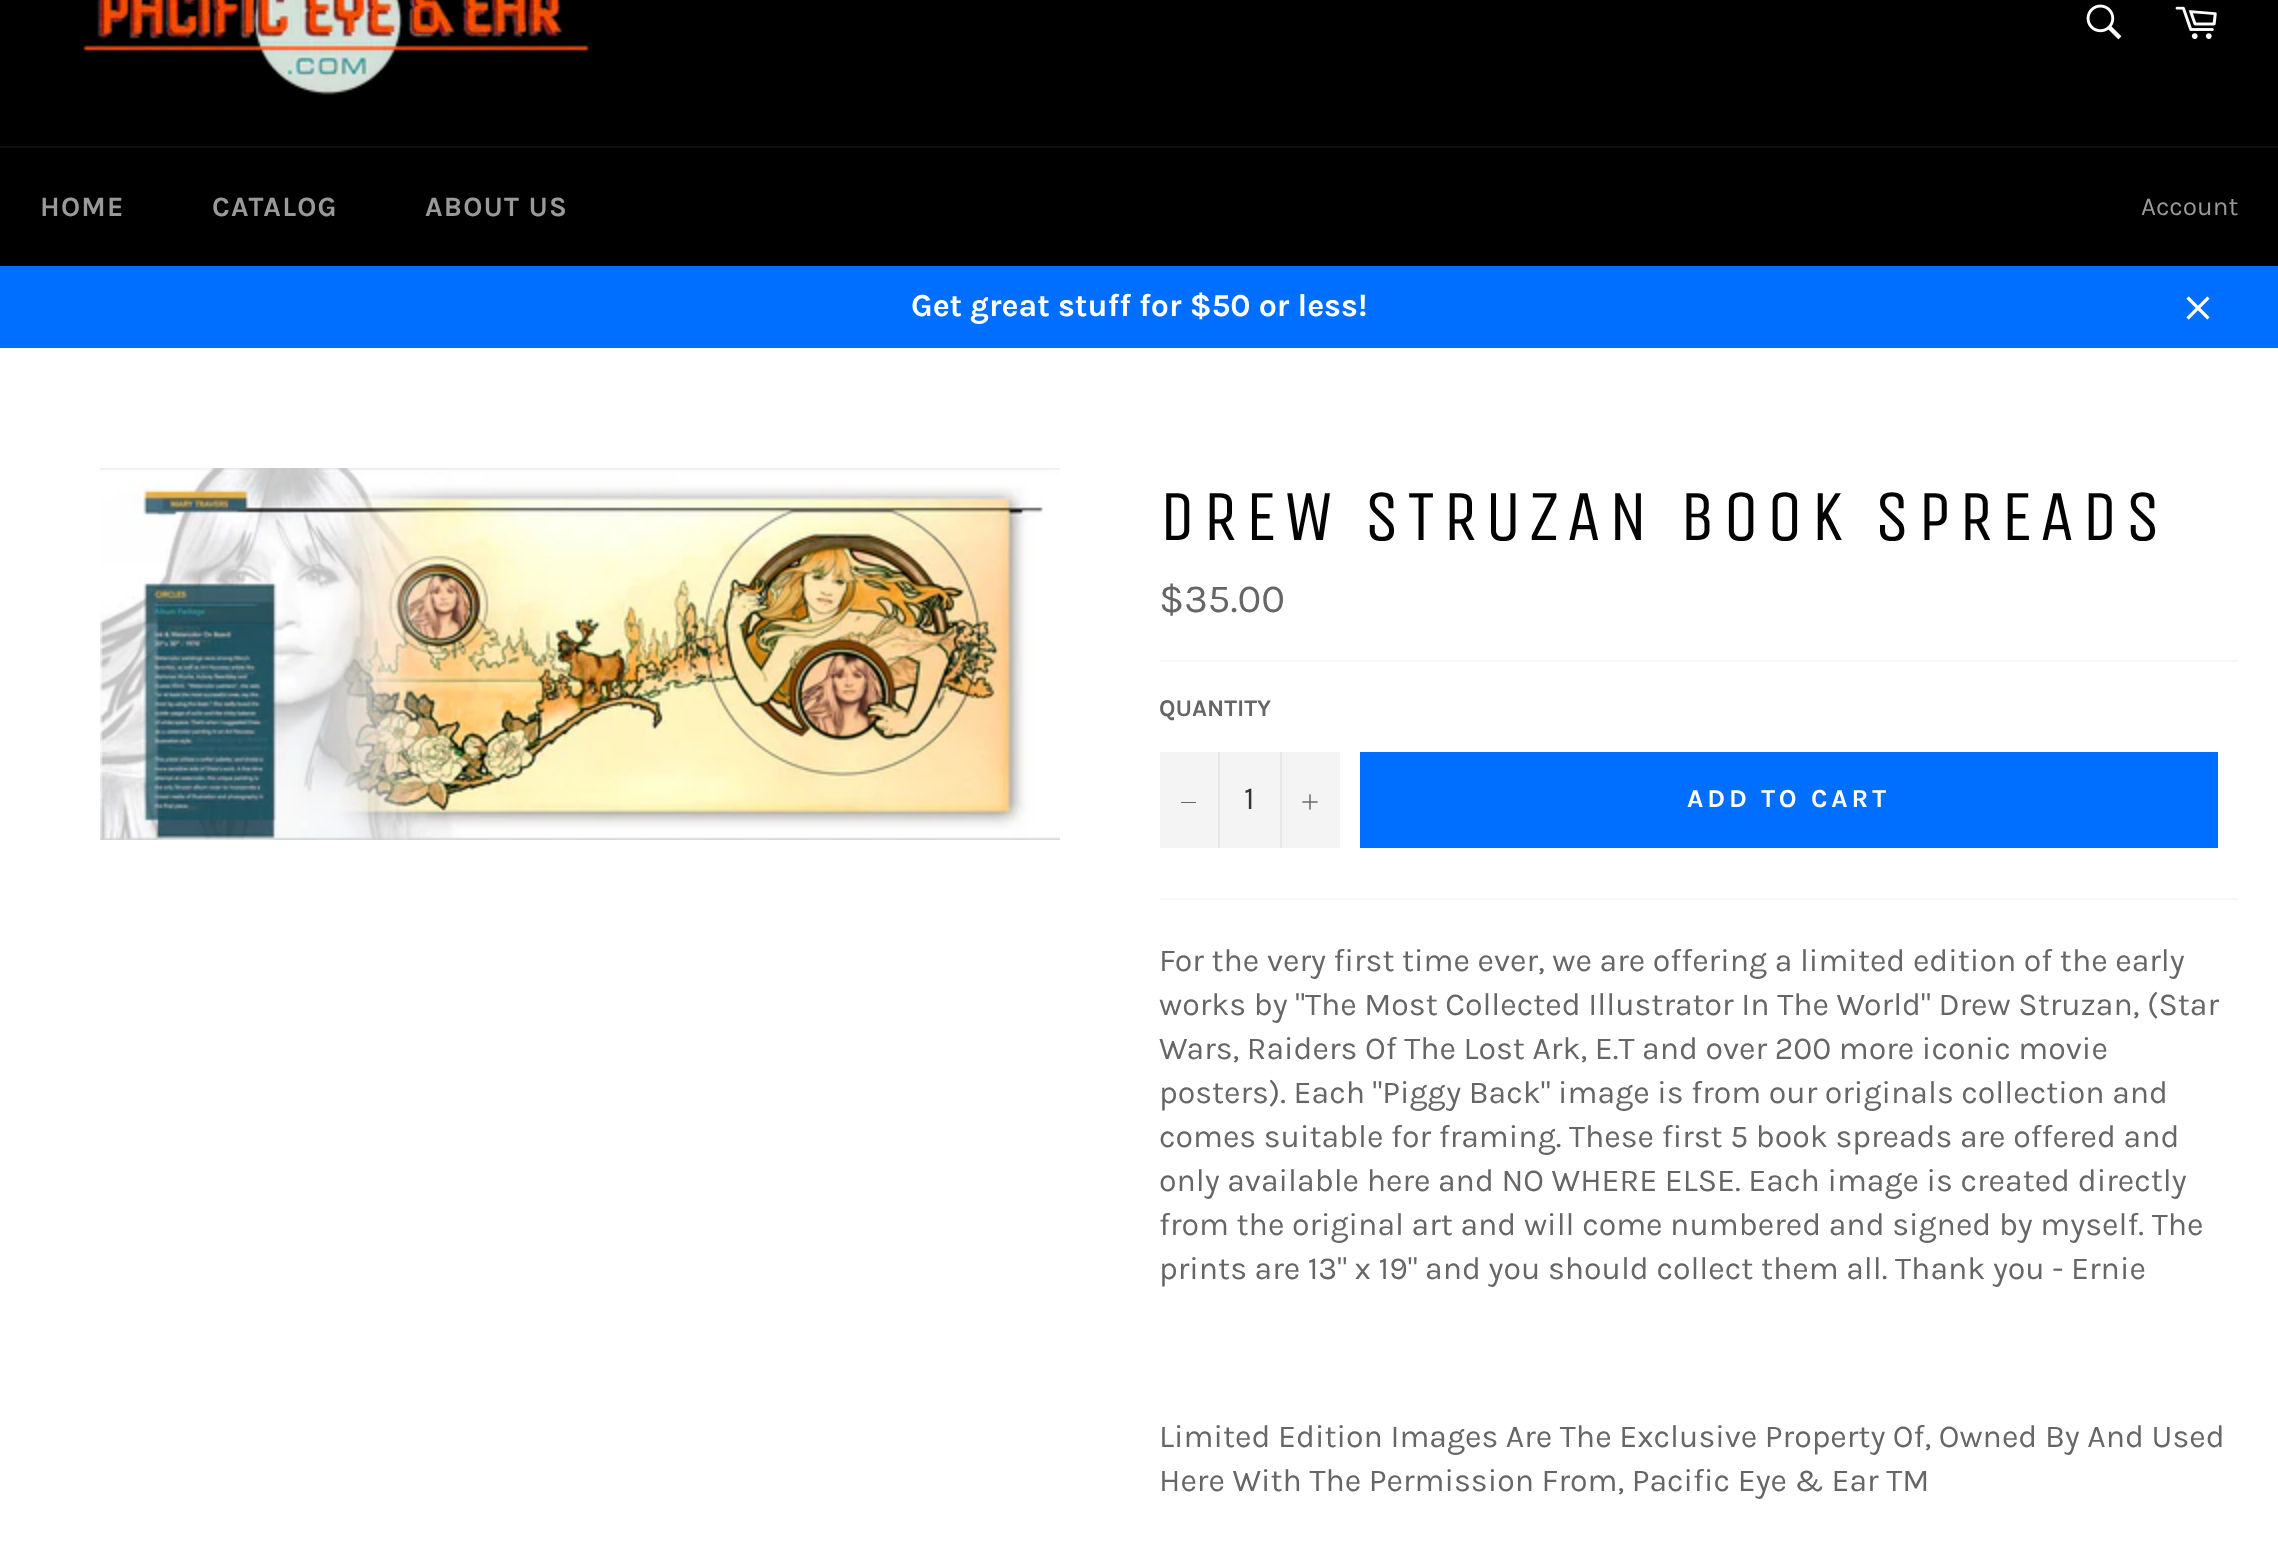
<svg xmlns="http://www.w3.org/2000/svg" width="2278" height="1560">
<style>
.a{font:bold 28px Karla;letter-spacing:1.25px;fill:#999}
.b{font:26px Karla;fill:#999}
.c{font:bold 32px Karla;fill:#fff}
.d{font:72px Unica One;letter-spacing:7.2px;fill:#030303}
.e{font:40px Karla;fill:#666}
.f{font:bold 24px Karla;fill:#666}
.g{font:32px Karla;fill:#333}
.h{font:bold 26px Karla;letter-spacing:3.9px;fill:#fff}
.i{font:32px Karla;fill:#666}
</style>
<rect width="100%" height="100%" fill="#000"/>
<image href="1.png" x="83" y="0" width="506" height="95"/>
<image href="2.png" x="2086" y="4" width="36" height="36"/>
<image href="3.png" x="2175" y="6" width="42" height="33"/>
<path fill="#0d0d0d" d="M0 146h2278v2H0z"/>
<path fill="#006eff" d="M0 266h2278v82H0z"/>
<image href="4.png" x="2186" y="296" width="24" height="24"/>
<path fill="#fff" d="M0 348h2278v1212H0z"/>
<image href="5.png" x="100" y="468" width="960" height="372"/>
<path fill="#f7f7f7" d="M1160 660h1078v2H1160z"/>
<path fill="#f4f4f4" d="M1160 752h180v96H1160z"/>
<path fill="#e7e7e7" d="M1218 752h2v96H1218z"/>
<path fill="#666" d="M1181 802h15v1H1181z"/>
<path fill="#e7e7e7" d="M1280 752h2v96H1280z"/>
<image href="6.png" x="1302" y="794" width="16" height="16"/>
<path fill="#006eff" d="M1360 752h858v96H1360z"/>
<path fill="#f7f7f7" d="M1160 898h1078v2H1160z"/>
<text class="a" x="40" y="216">HOME</text>
<text class="a" x="212" y="216">CATALOG</text>
<text class="a" x="425" y="216">ABOUT US</text>
<text class="b" x="2141" y="215">Account</text>
<text class="c" x="911" y="316">Get great stuff for $50 or less!</text>
<text class="d" x="1159" y="540">DREW STRUZAN BOOK SPREADS</text>
<text class="e" x="1159" y="612">$35.00</text>
<text class="f" x="1159" y="716">QUANTITY</text>
<text class="g" x="1244" y="809">1</text>
<text class="h" x="1687" y="807">ADD TO CART</text>
<text class="i" x="1159" y="971">For the very first time ever, we are offering a limited edition of the early</text>
<text class="i" x="1159" y="1015">works by "The Most Collected Illustrator In The World" Drew Struzan, (Star</text>
<text class="i" x="1159" y="1059">Wars, Raiders Of The Lost Ark, E.T and over 200 more iconic movie</text>
<text class="i" x="1159" y="1103">posters). Each "Piggy Back" image is from our originals collection and</text>
<text class="i" x="1159" y="1147">comes suitable for framing. These first 5 book spreads are offered and</text>
<text class="i" x="1159" y="1191">only available here and NO WHERE ELSE. Each image is created directly</text>
<text class="i" x="1159" y="1235">from the original art and will come numbered and signed by myself. The</text>
<text class="i" x="1159" y="1279">prints are 13" x 19" and you should collect them all. Thank you - Ernie</text>
<text class="i" x="1159" y="1447">Limited Edition Images Are The Exclusive Property Of, Owned By And Used</text>
<text class="i" x="1159" y="1491">Here With The Permission From, Pacific Eye &amp; Ear TM</text>
</svg>
